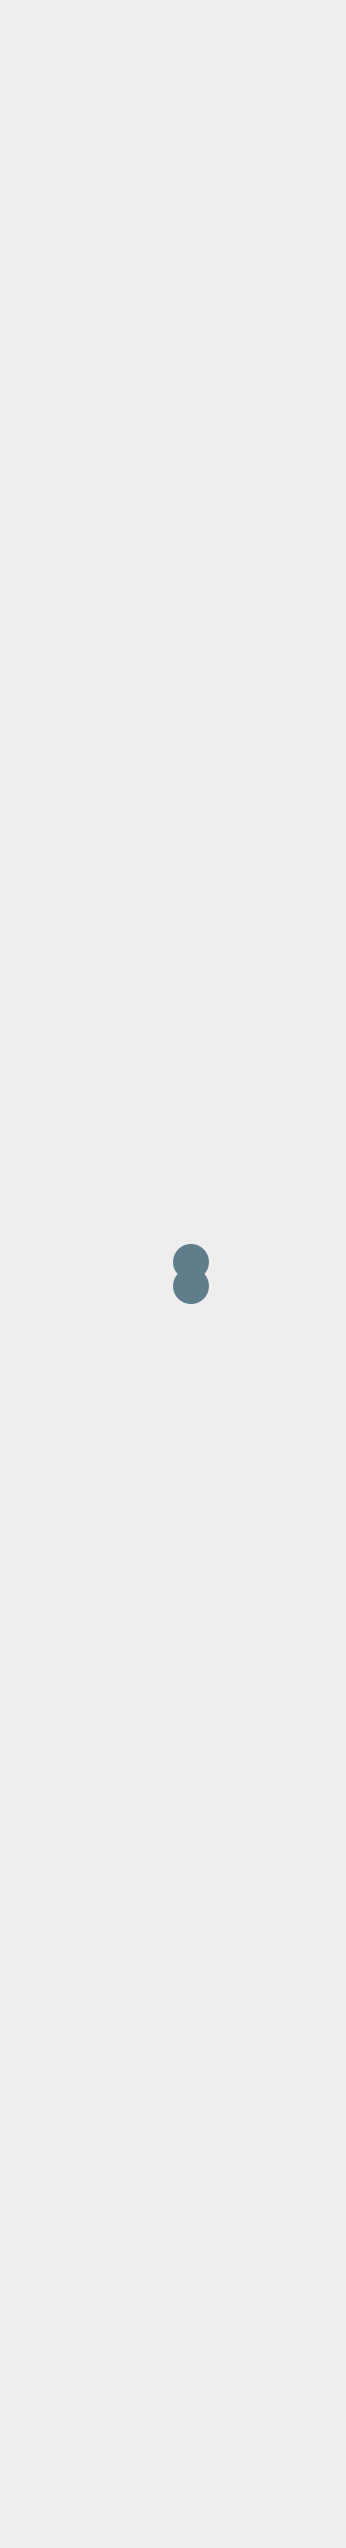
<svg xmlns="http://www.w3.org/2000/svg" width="346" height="2548">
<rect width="100%" height="100%" fill="#eee"/>
<circle fill="#607d8b" cx="191" cy="1262" r="18"/>
<circle fill="#607d8b" cx="191" cy="1286" r="18"/>
</svg>
